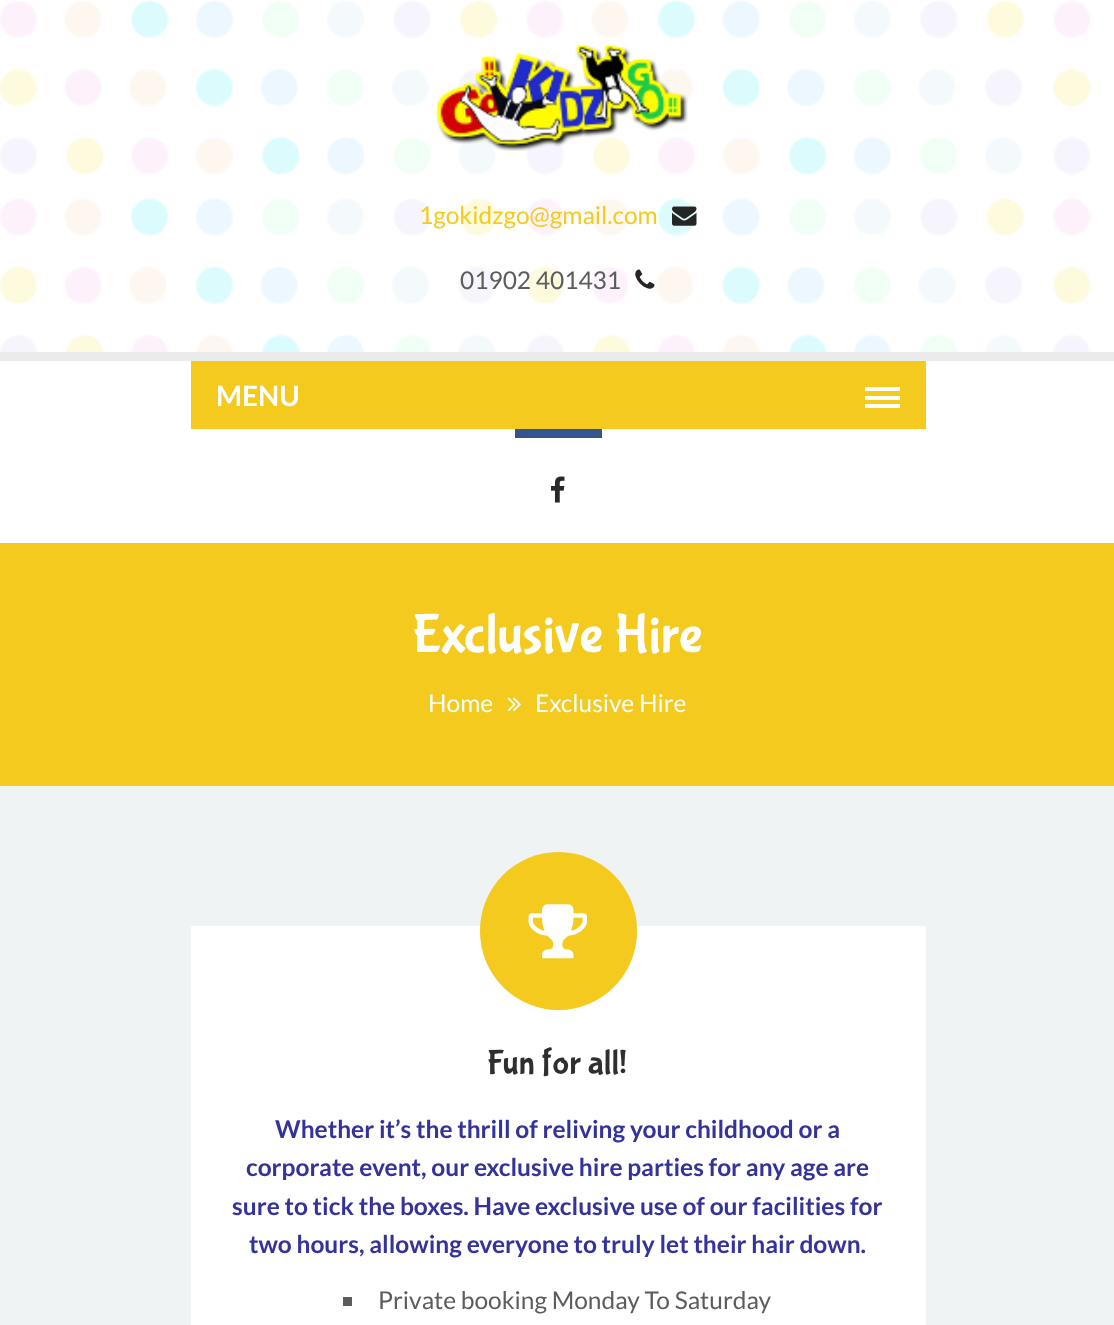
<svg xmlns="http://www.w3.org/2000/svg" width="1114" height="1325">
<style>
.a{font:24.5px Lato;fill:#f3ca1d}
.b{font:24.5px Lato;fill:#5c5c5c}
.c{font:bold 28px Lato;fill:#fff}
.d{font:56px Bubblegum Sans;fill:#fff}
.e{font:24.5px Lato;fill:#fff}
.f{font:35px Bubblegum Sans;fill:#2f2f2f}
.g{font:bold 24.5px Lato;fill:#339}
</style>
<rect width="100%" height="100%" fill="#f0f3f3"/>
<path fill="#fff" d="M0 0h1114v352H0z"/>
<image href="1.png" x="0" y="0" width="1091" height="352"/>
<image href="2.png" x="435" y="44" width="253" height="107"/>
<image href="3.png" x="672" y="206" width="25" height="20"/>
<image href="4.png" x="635" y="269" width="20" height="20"/>
<path fill="#fff" d="M0 361h1114v182H0z"/>
<path fill="#ebebeb" d="M0 352h1114v9H0z"/>
<path fill="#f3ca1d" d="M191 361h735v68H191z"/>
<path fill="#fff" d="M865 396h35v4H865z"/>
<path fill="#fff" d="M865 387h35v4H865z"/>
<path fill="#fff" d="M865 404h35v4H865z"/>
<path fill="#35538f" d="M515 429h87v9H515z"/>
<image href="5.png" x="551" y="476" width="14" height="27"/>
<path fill="#f3ca1d" d="M0 543h1114v243H0z"/>
<image href="6.png" x="507" y="697" width="14" height="15"/>
<path fill="#fff" d="M191 926h735v399H191z"/>
<rect fill="#f3ca1d" x="480" y="852" width="157" height="158" rx="78.5"/>
<image href="7.png" x="528" y="904" width="59" height="55"/>
<path fill="#5c5c5c" d="M343 1297h9v9H343z"/>
<text class="a" x="419" y="224">1gokidzgo@gmail.com</text>
<text class="b" x="460" y="289">01902 401431</text>
<text class="c" x="216" y="406">MENU</text>
<text class="d" x="412" y="651">Exclusive Hire</text>
<text class="e" x="428" y="712">Home</text>
<text class="e" x="535" y="712">Exclusive Hire</text>
<text class="f" x="487" y="1073">Fun for all!</text>
<text class="g" x="275" y="1138">Whether it’s the thrill of reliving your childhood or a</text>
<text class="g" x="246" y="1176">corporate event, our exclusive hire parties for any age are</text>
<text class="g" x="232" y="1215">sure to tick the boxes. Have exclusive use of our facilities for</text>
<text class="g" x="249" y="1253">two hours, allowing everyone to truly let their hair down.</text>
<text class="b" x="378" y="1309">Private booking Monday To Saturday</text>
</svg>
